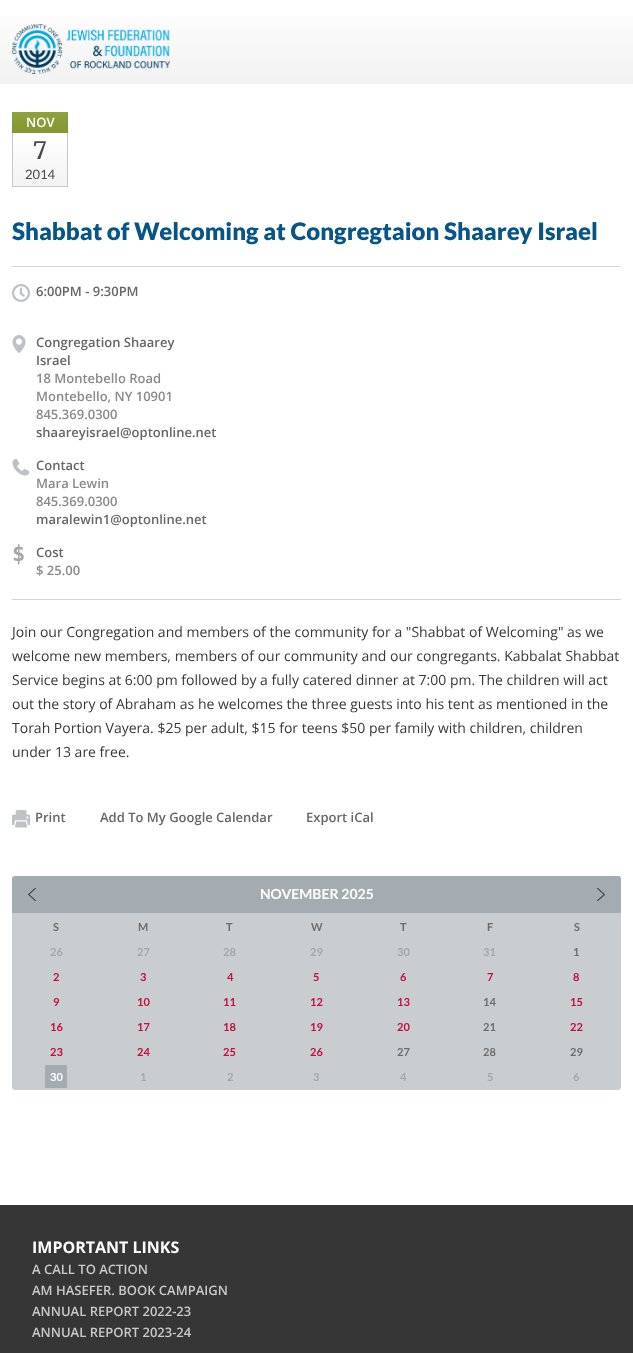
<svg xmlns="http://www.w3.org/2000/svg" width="633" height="1353">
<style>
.a{font:600 13px Open Sans;fill:#fff}
.b{font:24px Merriweather;fill:#484848}
.c{font:13px Lato;fill:#484848}
.d{font:900 24px Lato;fill:#075585}
.e{font:600 13px Open Sans;fill:#666}
.f{font:600 13px Open Sans;fill:#8a8a8a}
.g{font:bold 22px DejaVu Sans Mono;fill:#a6a6a6}
.h{font:14px Open Sans;fill:#383838}
.i{font:bold 14px Lato;fill:#fff}
.j{font:bold 11px Lato;fill:#6c6c6c}
.k{font:bold 11px Lato;fill:#a6a6a6}
.l{font:bold 11px Lato;fill:#c10f3e}
.m{font:bold 11px Lato;fill:#fff}
.n{font:bold 16px Open Sans;fill:#fff}
.o{font:600 13px Open Sans;fill:#c9c9c9}
</style>
<defs>
<linearGradient id="g1" gradientUnits="userSpaceOnUse" x1="317" y1="0" x2="317" y2="84"><stop offset="0" stop-color="#fff"/><stop offset="1" stop-color="#f2f2f2"/></linearGradient>
<linearGradient id="g2" gradientUnits="userSpaceOnUse" x1="40" y1="112" x2="40" y2="133"><stop offset="0" stop-color="#8ea33a"/><stop offset="1" stop-color="#829633"/></linearGradient>
<linearGradient id="g3" gradientUnits="userSpaceOnUse" x1="40" y1="133" x2="40" y2="186"><stop offset="0" stop-color="#fff"/><stop offset="1" stop-color="#f3f3f3"/></linearGradient>
</defs>
<rect width="100%" height="100%" fill="#fff"/>
<path fill="url(#g1)" d="M0 16h633v68H0z"/>
<image href="1.png" x="12" y="24" width="158" height="50"/>
<path fill="url(#g2)" d="M12 112h56v21H12z"/>
<path fill="url(#g3)" d="M13 144h54v42H13z"/>
<path fill="#c9c9c9" d="M67 133h1v54H67z"/>
<path fill="#c9c9c9" d="M12 186h56v1H12z"/>
<path fill="#c9c9c9" d="M12 133h1v54H12z"/>
<path fill="#d5d5d5" d="M12 266h609v1H12z"/>
<image href="2.png" x="12" y="284" width="18" height="18"/>
<image href="3.png" x="12" y="335" width="14" height="18"/>
<image href="4.png" x="12" y="458" width="18" height="18"/>
<path fill="#d5d5d5" d="M12 599h609v1H12z"/>
<image href="5.png" x="12" y="810" width="18" height="18"/>
<rect fill="#cacdcf" x="12" y="876" width="609" height="214" rx="3"/>
<path fill="#a4acb1" d="M15 876h603c1.5 0 3 1.5 3 3v34h-609v-34c0-1.5 1.5-3 3-3z"/>
<image href="6.png" x="28" y="888" width="9" height="13"/>
<image href="7.png" x="596" y="888" width="9" height="13"/>
<path fill="#a4acb1" d="M45 1065h22v23H45z"/>
<path fill="#363636" d="M0 1205h633v148H0z"/>
<text class="a" x="26" y="127">NOV</text>
<text class="b" x="33" y="159">7</text>
<text class="c" x="25" y="179">2014</text>
<text class="d" x="12" y="240">Shabbat of Welcoming at Congregtaion Shaarey Israel</text>
<text class="e" x="36" y="296">6:00PM - 9:30PM</text>
<text class="e" x="36" y="347">Congregation Shaarey</text>
<text class="e" x="36" y="365">Israel</text>
<text class="f" x="36" y="383">18 Montebello Road</text>
<text class="f" x="36" y="401">Montebello, NY 10901</text>
<text class="f" x="36" y="419">845.369.0300</text>
<text class="e" x="36" y="437">shaareyisrael@optonline.net</text>
<text class="e" x="36" y="470">Contact</text>
<text class="f" x="36" y="488">Mara Lewin</text>
<text class="f" x="36" y="506">845.369.0300</text>
<text class="e" x="36" y="524">maralewin1@optonline.net</text>
<text class="g" x="12" y="561">$</text>
<text class="e" x="36" y="557">Cost</text>
<text class="f" x="36" y="575">$ 25.00</text>
<text class="h" x="12" y="637">Join our Congregation and members of the community for a "Shabbat of Welcoming" as we</text>
<text class="h" x="12" y="661">welcome new members, members of our community and our congregants. Kabbalat Shabbat</text>
<text class="h" x="12" y="685">Service begins at 6:00 pm followed by a fully catered dinner at 7:00 pm. The children will act</text>
<text class="h" x="12" y="709">out the story of Abraham as he welcomes the three guests into his tent as mentioned in the</text>
<text class="h" x="12" y="733">Torah Portion Vayera. $25 per adult, $15 for teens $50 per family with children, children</text>
<text class="h" x="12" y="757">under 13 are free.</text>
<text class="e" x="35" y="822">Print</text>
<text class="e" x="100" y="822">Add To My Google Calendar</text>
<text class="e" x="306" y="822">Export iCal</text>
<text class="i" x="260" y="899">NOVEMBER 2025</text>
<text class="j" x="53" y="931">S</text>
<text class="j" x="138" y="931">M</text>
<text class="j" x="226" y="931">T</text>
<text class="j" x="311" y="931">W</text>
<text class="j" x="400" y="931">T</text>
<text class="j" x="487" y="931">F</text>
<text class="j" x="574" y="931">S</text>
<text class="k" x="50" y="956">26</text>
<text class="k" x="137" y="956">27</text>
<text class="k" x="223" y="956">28</text>
<text class="k" x="310" y="956">29</text>
<text class="k" x="397" y="956">30</text>
<text class="k" x="483" y="956">31</text>
<text class="j" x="573" y="956">1</text>
<text class="l" x="53" y="981">2</text>
<text class="l" x="140" y="981">3</text>
<text class="l" x="227" y="981">4</text>
<text class="l" x="313" y="981">5</text>
<text class="l" x="400" y="981">6</text>
<text class="l" x="487" y="981">7</text>
<text class="l" x="573" y="981">8</text>
<text class="l" x="53" y="1006">9</text>
<text class="l" x="137" y="1006">10</text>
<text class="l" x="223" y="1006">11</text>
<text class="l" x="310" y="1006">12</text>
<text class="l" x="397" y="1006">13</text>
<text class="j" x="483" y="1006">14</text>
<text class="l" x="570" y="1006">15</text>
<text class="l" x="50" y="1031">16</text>
<text class="l" x="137" y="1031">17</text>
<text class="l" x="223" y="1031">18</text>
<text class="l" x="310" y="1031">19</text>
<text class="l" x="397" y="1031">20</text>
<text class="j" x="483" y="1031">21</text>
<text class="l" x="570" y="1031">22</text>
<text class="l" x="50" y="1056">23</text>
<text class="l" x="137" y="1056">24</text>
<text class="l" x="223" y="1056">25</text>
<text class="l" x="310" y="1056">26</text>
<text class="j" x="397" y="1056">27</text>
<text class="j" x="483" y="1056">28</text>
<text class="j" x="570" y="1056">29</text>
<text class="m" x="50" y="1081">30</text>
<text class="k" x="140" y="1081">1</text>
<text class="k" x="227" y="1081">2</text>
<text class="k" x="313" y="1081">3</text>
<text class="k" x="400" y="1081">4</text>
<text class="k" x="487" y="1081">5</text>
<text class="k" x="573" y="1081">6</text>
<text class="n" x="32" y="1253">IMPORTANT LINKS</text>
<text class="o" x="32" y="1274">A CALL TO ACTION</text>
<text class="o" x="32" y="1295">AM HASEFER. BOOK CAMPAIGN</text>
<text class="o" x="32" y="1316">ANNUAL REPORT 2022-23</text>
<text class="o" x="32" y="1337">ANNUAL REPORT 2023-24</text>
</svg>
